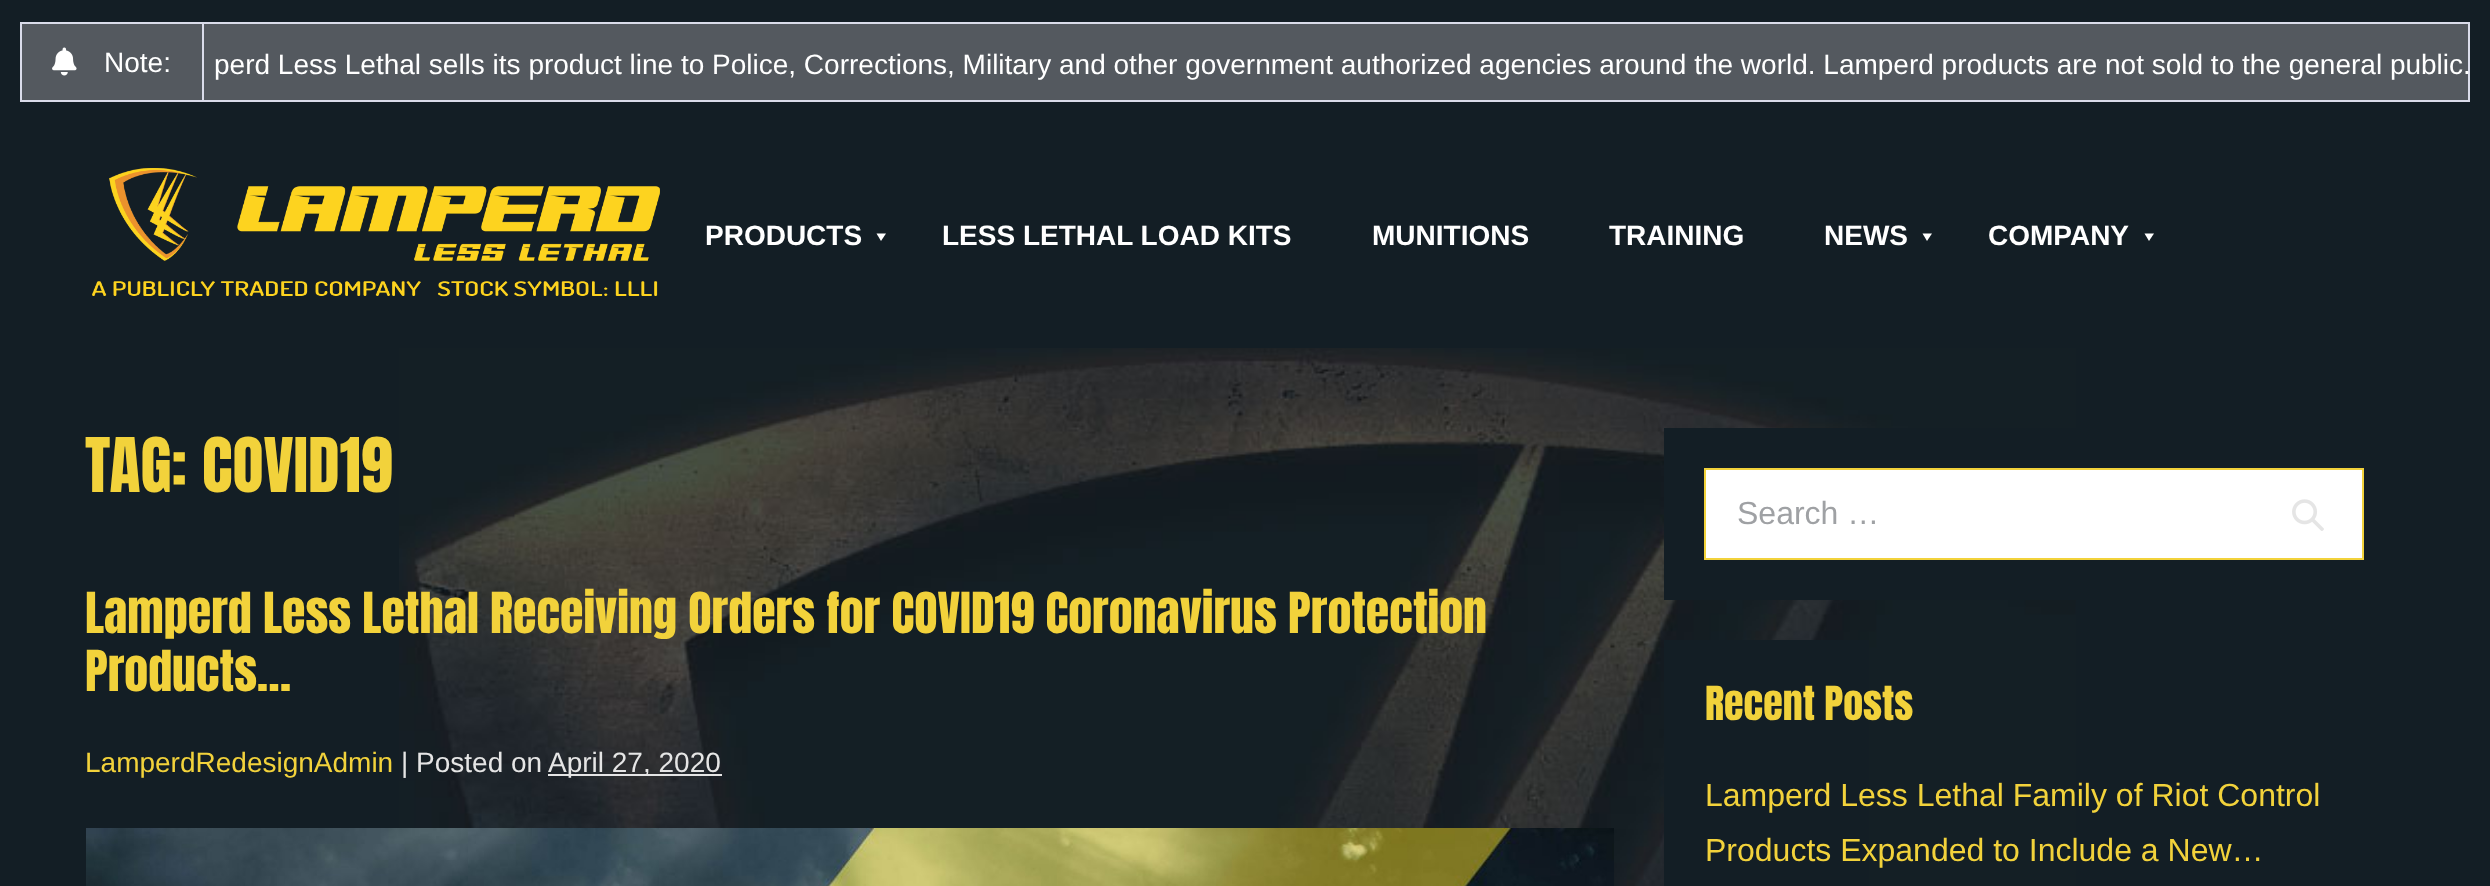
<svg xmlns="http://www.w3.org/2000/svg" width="2490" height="886">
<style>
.a{font:28px Liberation Sans;fill:#fff}
.b{font:bold 28px Liberation Sans;fill:#fff}
.c{font:64px Anton;fill:#f2d23b}
.d{font:48px Anton;fill:#f2d23b}
.e{font:28px Liberation Sans;fill:#f2d23b}
.f{font:28px Liberation Sans;fill:#e5e5e5}
.g{font:32px Liberation Sans;fill:#9fa1a4}
.h{font:40px Anton;fill:#f2d23b}
.i{font:32px Liberation Sans;fill:#f2d23b}
</style>
<rect width="100%" height="100%" fill="#131e25"/>
<image href="1.png" x="399" y="348" width="1677" height="538"/>
<path fill="#54595f" stroke="#dadcea" stroke-width="2" d="M21 23h2448v78H21z"/>
<path fill="#dadcea" d="M202 24h2v76H202z"/>
<image href="2.png" x="52" y="47" width="25" height="29"/>
<image href="3.png" x="92" y="168" width="568" height="129"/>
<path fill="#fff" d="M886 233.5l-5 7.5l-4.5-7.5z"/>
<path fill="#fff" d="M1932 233.5l-5 7.5l-4.5-7.5z"/>
<path fill="#fff" d="M2154 233.5l-5 7.5l-4.5-7.5z"/>
<path fill="#e5e5e5" d="M548 774h174v2H548z"/>
<image href="4.png" x="86" y="828" width="1528" height="58"/>
<path fill="#131e25" d="M1664 428h412v172H1664z"/>
<path fill="#fff" stroke="#f2d23b" stroke-width="2" d="M1705 469h658v90H1705z"/>
<image href="5.png" x="2292" y="499" width="32" height="32"/>
<path fill="#131e25" d="M1664 640h205v246H1664z"/>
<text class="a" x="104" y="72">Note:</text>
<text class="a" x="214" y="74">perd Less Lethal sells its product line to Police, Corrections, Military and other government authorized agencies around the world. Lamperd products are not sold to the general public.</text>
<text class="b" x="705" y="245">PRODUCTS</text>
<text class="b" x="942" y="245">LESS LETHAL LOAD KITS</text>
<text class="b" x="1372" y="245">MUNITIONS</text>
<text class="b" x="1609" y="245">TRAINING</text>
<text class="b" x="1824" y="245">NEWS</text>
<text class="b" x="1988" y="245">COMPANY</text>
<text class="c" x="85" y="492">TAG: COVID19</text>
<text class="d" x="85" y="633">Lamperd Less Lethal Receiving Orders for COVID19 Coronavirus Protection</text>
<text class="d" x="85" y="691">Products…</text>
<text class="e" x="85" y="772">LamperdRedesignAdmin</text>
<text class="f" x="401" y="772">| Posted on</text>
<text class="f" x="548" y="772">April 27, 2020</text>
<text class="g" x="1737" y="524">Search …</text>
<text class="h" x="1705" y="720">Recent Posts</text>
<text class="i" x="1705" y="806">Lamperd Less Lethal Family of Riot Control</text>
<text class="i" x="1705" y="861">Products Expanded to Include a New…</text>
</svg>
